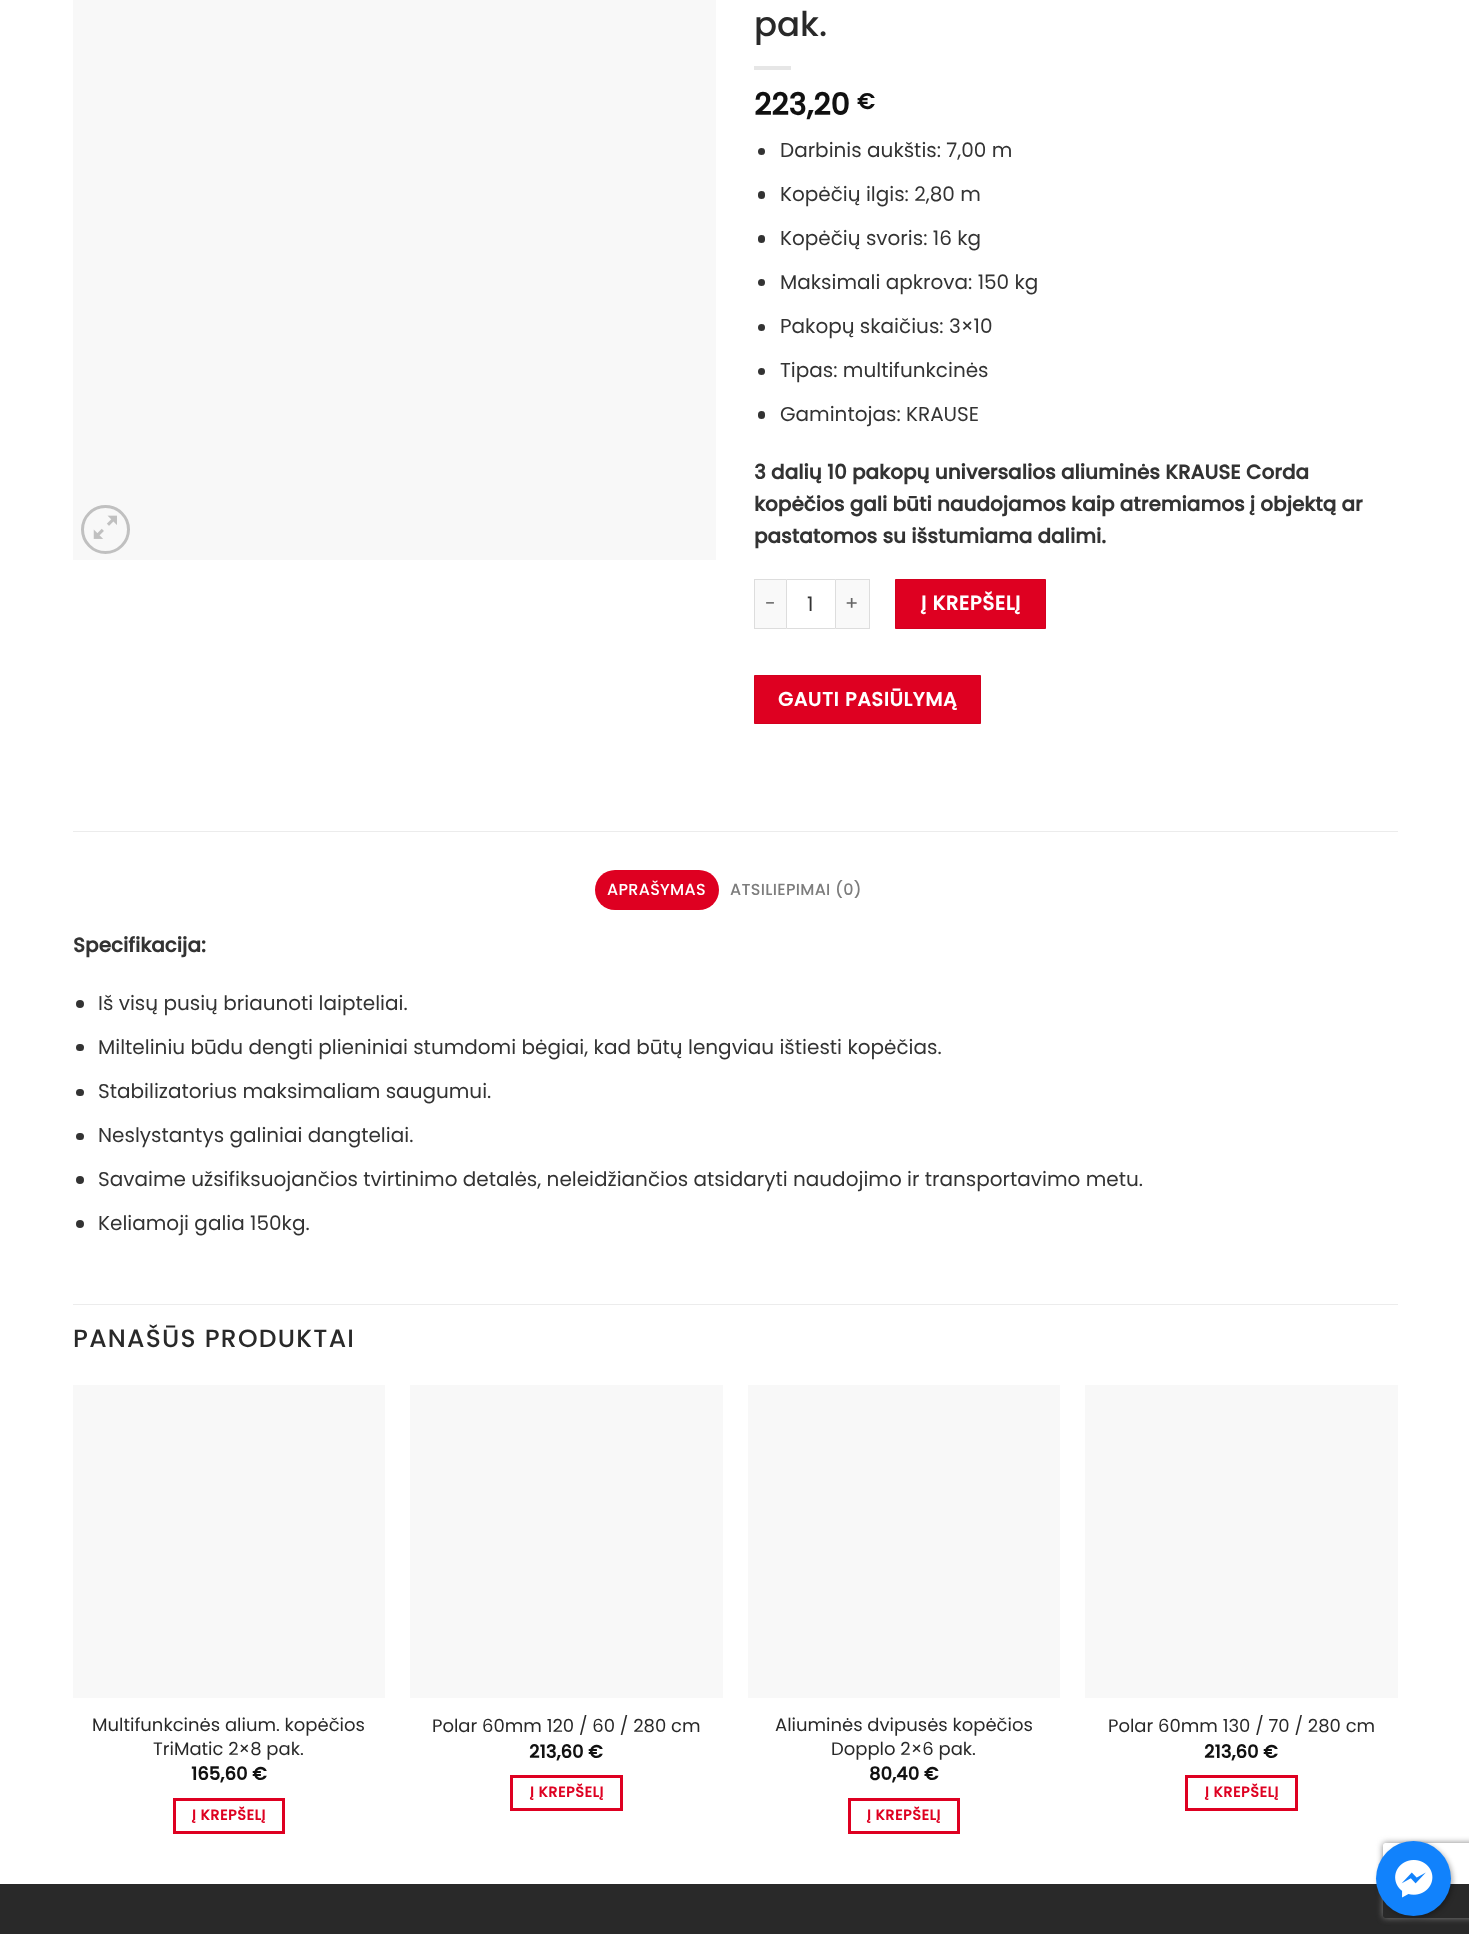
<svg xmlns="http://www.w3.org/2000/svg" width="1469" height="1934">
<style>
.a{font:500 34px Poppins;fill:#292929}
.b{font:bold 30px Poppins;fill:#111}
.c{font:bold 22px Poppins;fill:#111}
.d{font:20px Poppins;fill:#333}
.e{font:bold 20px Poppins;fill:#333}
.f{font:19.5px Poppins;letter-spacing:0.6px;fill:#666}
.g{font:bold 20px Poppins;letter-spacing:0.5px;fill:#fff}
.h{font:bold 19.5px Poppins;letter-spacing:0.6px;fill:#fff}
.i{font:500 16px Poppins;letter-spacing:0.3px;fill:#fff}
.j{font:500 16px Poppins;letter-spacing:0.3px;fill:#7d7d7d}
.k{font:500 25px Poppins;letter-spacing:1.25px;fill:#292929}
.l{font:18px Poppins;fill:#292929}
.m{font:bold 18px Poppins;fill:#111}
.n{font:bold 14.5px Poppins;letter-spacing:0.5px;fill:#de0021}
</style>
<defs>
<clipPath id="clip1"><path d="M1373 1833h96v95h-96zm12.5 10h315c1.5 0 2.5 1 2.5 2.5v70c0 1.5-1 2.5-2.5 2.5h-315c-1.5 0-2.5-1-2.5-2.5v-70c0-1.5 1-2.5 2.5-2.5z" clip-rule="evenodd"/></clipPath>
</defs>
<rect width="100%" height="100%" fill="#fff"/>
<path fill="#f8f8f8" d="M73 0h643v560H73z"/>
<circle fill="none" stroke="#c0c0c0" stroke-width="3" cx="105.5" cy="529.5" r="23"/>
<image href="1.png" x="93" y="515" width="24" height="24"/>
<path fill="#e6e6e6" d="M754 66h37v4H754z"/>
<circle fill="#333" cx="761.5" cy="151.5" r="3.5"/>
<rect fill="#333" x="758" y="191" width="7" height="8" rx="3.5"/>
<rect fill="#333" x="758" y="235" width="7" height="8" rx="3.5"/>
<circle fill="#333" cx="761.5" cy="282.5" r="3.5"/>
<circle fill="#333" cx="761.5" cy="327.5" r="3.5"/>
<circle fill="#333" cx="761.5" cy="371.5" r="3.5"/>
<rect fill="#333" x="758" y="411" width="7" height="8" rx="3.5"/>
<path fill="#f9f9f9" d="M755 580h31v48H755z"/>
<path fill="#ddd" d="M754 579h32v1H754z"/>
<path fill="#ddd" d="M754 628h32v1H754z"/>
<path fill="#ddd" d="M754 579h1v50H754z"/>
<path fill="none" stroke="#ddd" d="M786.5 579.5h49v49H786.5z"/>
<path fill="#f9f9f9" d="M836 580h33v48H836z"/>
<path fill="#ddd" d="M836 579h34v1H836z"/>
<path fill="#ddd" d="M869 579h1v50H869z"/>
<path fill="#ddd" d="M836 628h34v1H836z"/>
<path fill="#de0021" stroke="#d3001f" d="M895.5 579.5h150v49H895.5z"/>
<path fill="#de0021" stroke="#d3001f" d="M754.5 675.5h226v48H754.5z"/>
<path fill="#ececec" d="M73 831h1325v1H73z"/>
<rect fill="#de0021" x="595" y="870" width="124" height="40" rx="20"/>
<circle fill="#333" cx="80" cy="1004" r="4"/>
<rect fill="#333" x="76" y="1044" width="8" height="7" rx="3.5"/>
<rect fill="#333" x="76" y="1089" width="8" height="7" rx="3.5"/>
<rect fill="#333" x="76" y="1133" width="8" height="7" rx="3.5"/>
<circle fill="#333" cx="80" cy="1180" r="4"/>
<circle fill="#333" cx="80" cy="1224" r="4"/>
<path fill="#ececec" d="M73 1304h1325v1H73z"/>
<path fill="#f8f8f8" d="M73 1385h312v313H73z"/>
<path fill="none" stroke="#de0021" stroke-width="3" d="M174.5 1799.5h109v33H174.5z"/>
<path fill="#f8f8f8" d="M410 1385h313v313H410z"/>
<path fill="none" stroke="#de0021" stroke-width="3" d="M511.5 1776.5h110v33H511.5z"/>
<path fill="#f8f8f8" d="M748 1385h312v313H748z"/>
<path fill="none" stroke="#de0021" stroke-width="3" d="M849.5 1799.5h109v33H849.5z"/>
<path fill="#f8f8f8" d="M1085 1385h313v313H1085z"/>
<path fill="none" stroke="#de0021" stroke-width="3" d="M1186.5 1776.5h110v33H1186.5z"/>
<path fill="#292929" d="M0 1884h1469v50H0z"/>
<g clip-path="url(#clip1)">
<rect fill="#808080" filter="blur(3px)" x="1383" y="1843" width="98" height="75" rx="2.5"/>
</g>
<rect fill="#0000004d" filter="blur(2.5px)" x="1378" y="1843" width="75" height="75" rx="37.5"/>
<circle fill="#1182fc" cx="1413.5" cy="1878.5" r="37.5"/>
<image href="2.png" x="1395" y="1860" width="38" height="38"/>
<text class="a" x="754" y="36">pak.</text>
<text class="b" x="754" y="115">223,20</text>
<text class="c" x="857" y="109">€</text>
<text class="d" x="780" y="157">Darbinis aukštis: 7,00 m</text>
<text class="d" x="780" y="201">Kopėčių ilgis: 2,80 m</text>
<text class="d" x="780" y="245">Kopėčių svoris: 16 kg</text>
<text class="d" x="780" y="289">Maksimali apkrova: 150 kg</text>
<text class="d" x="780" y="333">Pakopų skaičius: 3×10</text>
<text class="d" x="780" y="377">Tipas: multifunkcinės</text>
<text class="d" x="780" y="421">Gamintojas: KRAUSE</text>
<text class="e" x="754" y="479">3 dalių 10 pakopų universalios aliuminės KRAUSE Corda</text>
<text class="e" x="754" y="511">kopėčios gali būti naudojamos kaip atremiamos į objektą ar</text>
<text class="e" x="754" y="543">pastatomos su išstumiama dalimi.</text>
<text class="f" x="765" y="610">-</text>
<text class="d" x="807" y="611">1</text>
<text class="f" x="845" y="610">+</text>
<text class="g" x="921" y="610">Į KREPŠELĮ</text>
<text class="h" x="778" y="706">GAUTI PASIŪLYMĄ</text>
<text class="i" x="607" y="895">APRAŠYMAS</text>
<text class="j" x="730" y="895">ATSILIEPIMAI (0)</text>
<text class="e" x="73" y="952">Specifikacija:</text>
<text class="d" x="98" y="1010">Iš visų pusių briaunoti laipteliai.</text>
<text class="d" x="98" y="1054">Milteliniu būdu dengti plieniniai stumdomi bėgiai, kad būtų lengviau ištiesti kopėčias.</text>
<text class="d" x="98" y="1098">Stabilizatorius maksimaliam saugumui.</text>
<text class="d" x="98" y="1142">Neslystantys galiniai dangteliai.</text>
<text class="d" x="98" y="1186">Savaime užsifiksuojančios tvirtinimo detalės, neleidžiančios atsidaryti naudojimo ir transportavimo metu.</text>
<text class="d" x="98" y="1230">Keliamoji galia 150kg.</text>
<text class="k" x="73" y="1347">PANAŠŪS PRODUKTAI</text>
<text class="l" x="92" y="1731">Multifunkcinės alium. kopėčios</text>
<text class="l" x="153" y="1755">TriMatic 2×8 pak.</text>
<text class="m" x="191" y="1780">165,60 €</text>
<text class="n" x="192" y="1820">Į KREPŠELĮ</text>
<text class="l" x="432" y="1732">Polar 60mm 120 / 60 / 280 cm</text>
<text class="m" x="529" y="1758">213,60 €</text>
<text class="n" x="530" y="1797">Į KREPŠELĮ</text>
<text class="l" x="775" y="1731">Aliuminės dvipusės kopėčios</text>
<text class="l" x="831" y="1755">Dopplo 2×6 pak.</text>
<text class="m" x="869" y="1780">80,40 €</text>
<text class="n" x="867" y="1820">Į KREPŠELĮ</text>
<text class="l" x="1108" y="1732">Polar 60mm 130 / 70 / 280 cm</text>
<text class="m" x="1204" y="1758">213,60 €</text>
<text class="n" x="1205" y="1797">Į KREPŠELĮ</text>
</svg>
